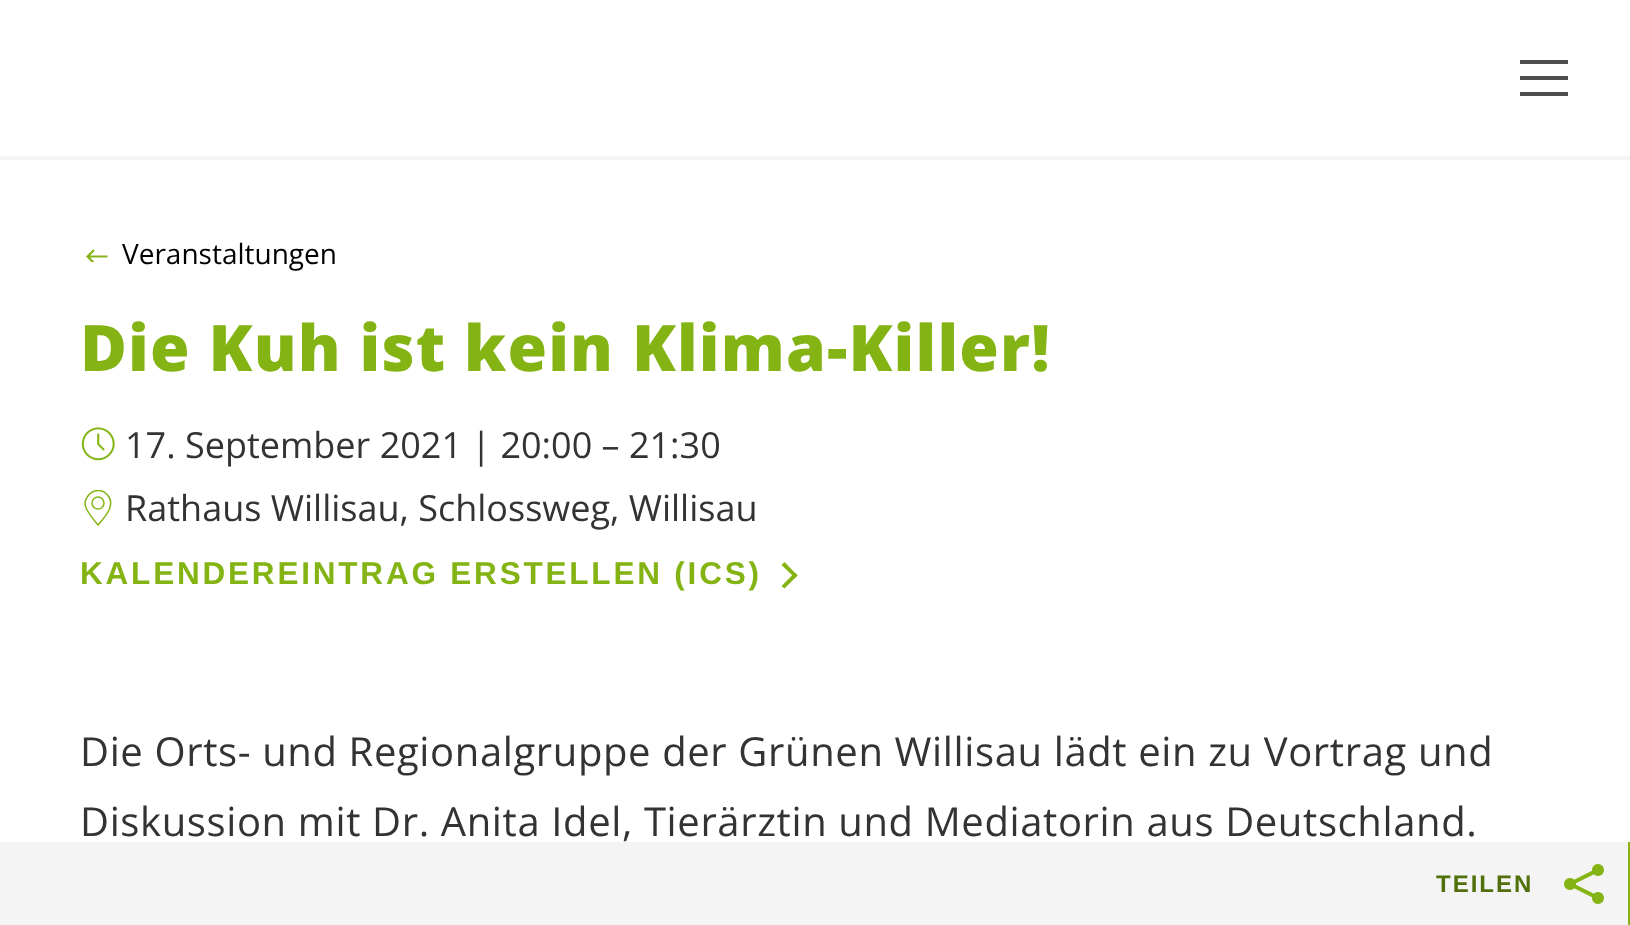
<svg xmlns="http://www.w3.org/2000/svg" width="1630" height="925">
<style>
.a{font:28px Open Sans;fill:#000}
.b{font:800 64px Open Sans;letter-spacing:1.15px;fill:#84b414}
.c{font:36px Open Sans;fill:#333}
.d{font:bold 31.5px Liberation Sans;letter-spacing:2.8px;fill:#84b414}
.e{font:40px Open Sans;letter-spacing:0.62px;fill:#333}
.f{font:bold 24px Liberation Sans;letter-spacing:2px;fill:#516f0a}
</style>
<defs>
<clipPath id="clip1"><path d="M86 248h22v14H86z"/></clipPath>
<clipPath id="clip2"><path d="M80 490h36v36H80z"/></clipPath>
</defs>
<rect width="100%" height="100%" fill="#fff"/>
<path fill="#f4f4f4" d="M0 156h1630v4H0z"/>
<path fill="#4e4e4e" d="M1520 76h48v4H1520z"/>
<path fill="#4e4e4e" d="M1520 60h48v4H1520z"/>
<path fill="#4e4e4e" d="M1520 92h48v4H1520z"/>
<g clip-path="url(#clip1)">
<path fill="none" stroke="#84b414" stroke-width="2.2" d="M94 263l-6.5-6.5l6.5-6.5m-6.5 6.5h20"/>
</g>
<image href="1.png" x="81" y="427" width="34" height="34"/>
<g clip-path="url(#clip2)">
<path fill="none" stroke="#84b414" stroke-width="1.5" d="M86.5 509c-6.5-13 11.5-25.5 21-14c9 10-3 22.5-9.5 30c-5.5-6.5-9.5-12-11.5-16z"/>
</g>
<circle fill="none" stroke="#84b414" stroke-width="1.5" cx="98" cy="503" r="6"/>
<path fill="#84b414" d="M784.5 562l13 13.5l-2.5 2.5l-13.5-13z"/>
<path fill="#84b414" d="M795 572.5l2.5 3l-13 13l-3-2.5z"/>
<path fill="#f4f4f4" d="M0 842h1628v83H0z"/>
<path fill="#84b414" d="M1628 842h2v83H1628z"/>
<image href="2.png" x="1564" y="864" width="40" height="40"/>
<text class="a" x="122" y="264">Veranstaltungen</text>
<text class="b" x="80" y="371">Die Kuh ist kein Klima-Killer!</text>
<text class="c" x="125" y="458">17. September 2021 | 20:00 – 21:30</text>
<text class="c" x="125" y="521">Rathaus Willisau, Schlossweg, Willisau</text>
<text class="d" x="80" y="584">KALENDEREINTRAG ERSTELLEN (ICS)</text>
<text class="e" x="80" y="766">Die Orts- und Regionalgruppe der Grünen Willisau lädt ein zu Vortrag und</text>
<text class="e" x="80" y="836">Diskussion mit Dr. Anita Idel, Tierärztin und Mediatorin aus Deutschland.</text>
<text class="f" x="1436" y="892">TEILEN</text>
</svg>
